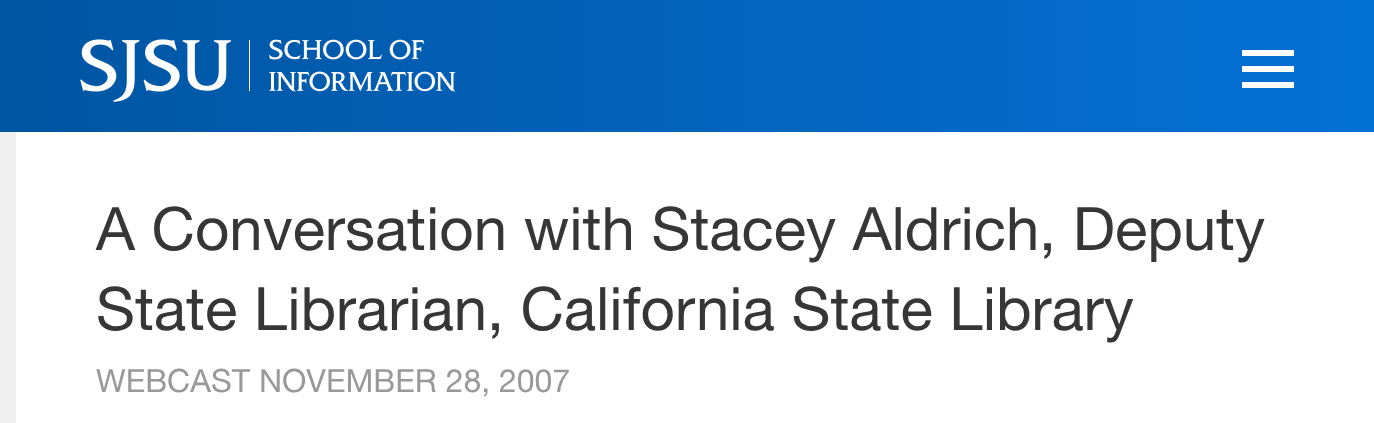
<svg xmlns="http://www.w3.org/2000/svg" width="1374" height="423">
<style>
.a{font:60px 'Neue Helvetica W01';fill:#363636}
.b{font:32px 'Neue Helvetica W01';fill:#999}
</style>
<defs>
<linearGradient id="g1" gradientUnits="userSpaceOnUse" x1="0" y1="66" x2="1374" y2="66"><stop offset="0" stop-color="#0055a2"/><stop offset="1" stop-color="#0471d5"/></linearGradient>
</defs>
<rect width="100%" height="100%" fill="#efefef"/>
<path fill="#fff" d="M16 132h1358v291H16z"/>
<path fill="url(#g1)" d="M0 0h1374v132H0z"/>
<image href="1.png" x="80" y="39" width="376" height="63"/>
<path fill="#fff" d="M1242 66h52v6H1242z"/>
<path fill="#fff" d="M1242 50h52v6H1242z"/>
<path fill="#fff" d="M1242 82h52v6H1242z"/>
<text class="a" x="96" y="250">A Conversation with Stacey Aldrich, Deputy</text>
<text class="a" x="96" y="330">State Librarian, California State Library</text>
<text class="b" x="96" y="392">WEBCAST NOVEMBER 28, 2007</text>
</svg>
